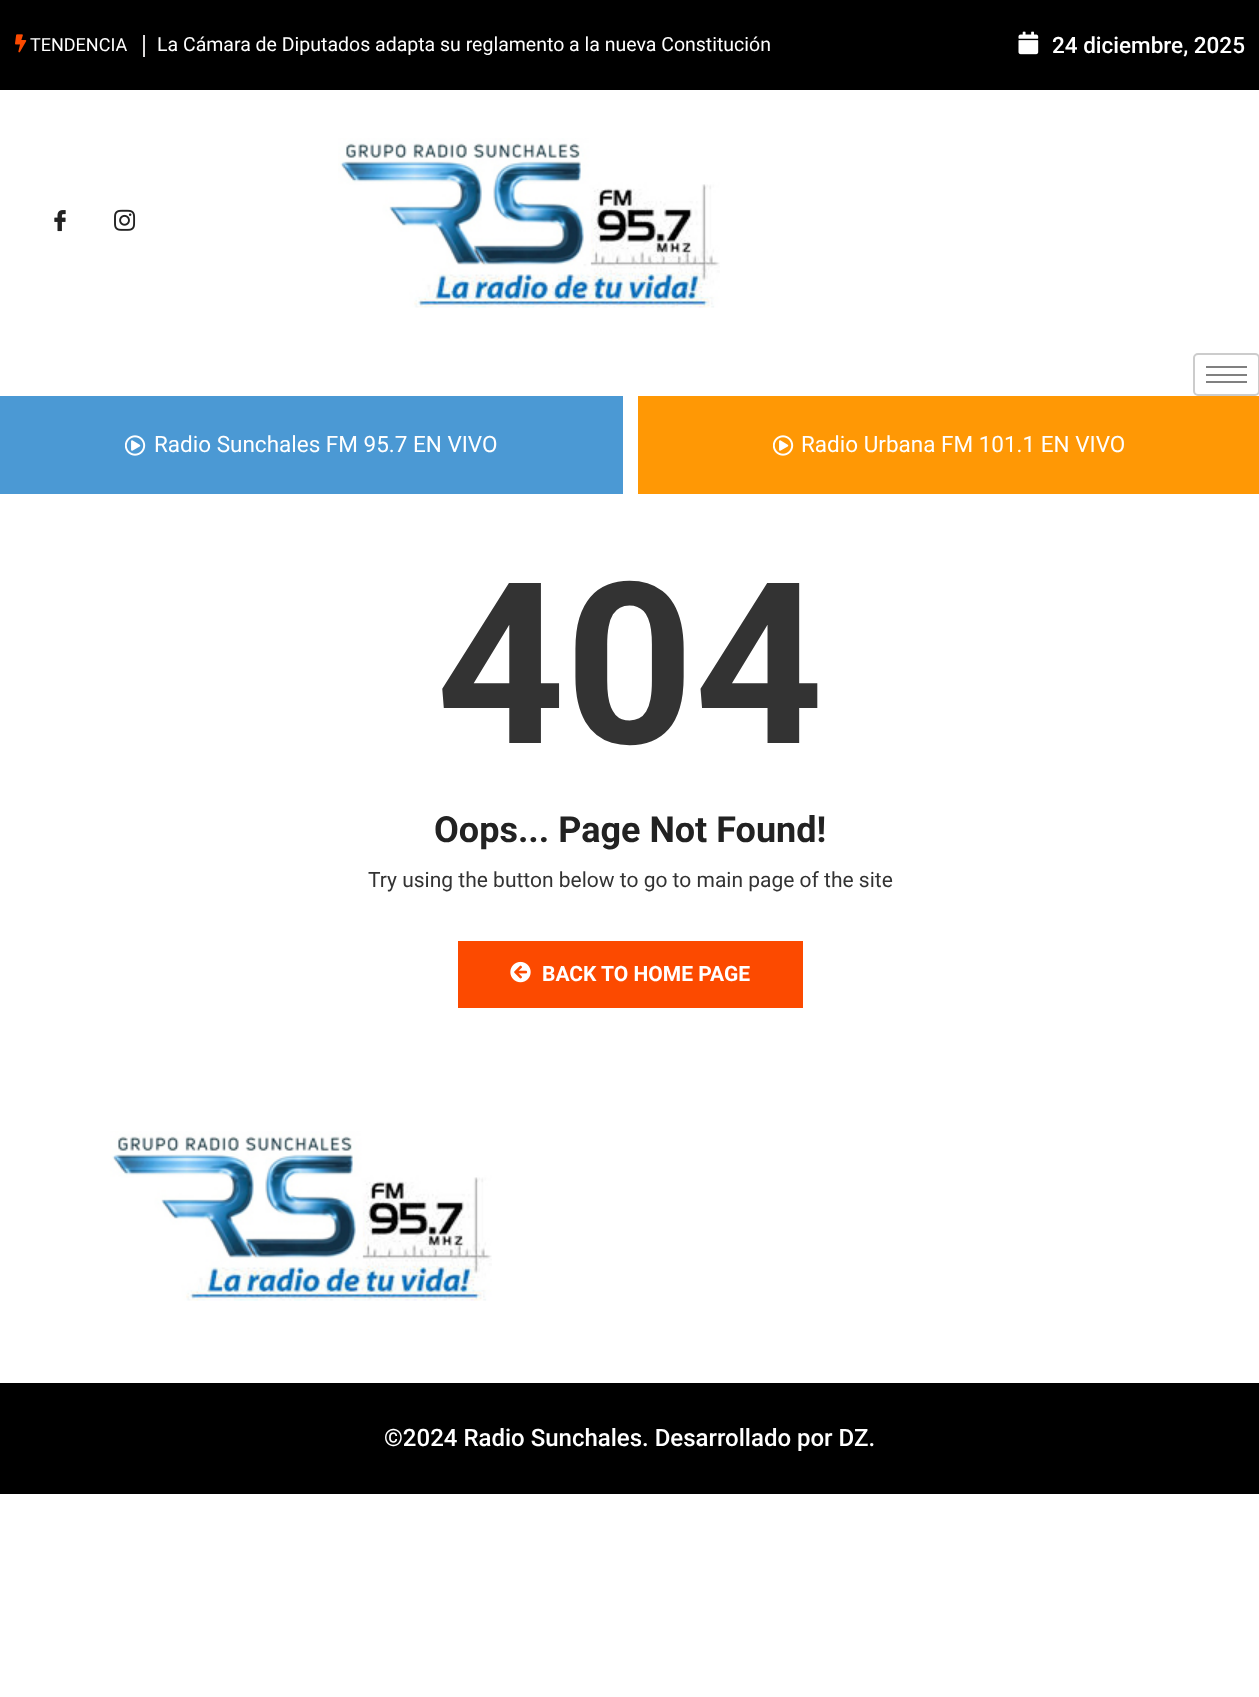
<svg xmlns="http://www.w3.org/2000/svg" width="1259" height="1697">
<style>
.a{font:18px Roboto;fill:#fff}
.b{font:19.5px Roboto;fill:#fff}
.c{font:500 22.5px Roboto;fill:#fff}
.d{font:22.5px Roboto;fill:#fff}
.e{font:bold 225px Roboto;fill:#333}
.f{font:bold 36px Roboto;fill:#222}
.g{font:21px Roboto;fill:#333}
.h{font:bold 21px Roboto;fill:#fff}
.i{font:500 24px Roboto;fill:#fff}
</style>
<rect width="100%" height="100%" fill="#fff"/>
<path fill="#000" d="M0 0h1259v90H0z"/>
<path fill="#dedbdb" d="M143 35h2v22H143z"/>
<image href="1.png" x="15" y="34" width="12" height="19"/>
<image href="2.png" x="1018" y="31" width="21" height="24"/>
<image href="3.png" x="54" y="210" width="12" height="22"/>
<image href="4.png" x="114" y="209" width="22" height="22"/>
<image href="5.png" x="338" y="138" width="382" height="170"/>
<rect fill="none" stroke="#ccc" stroke-width="2" x="1194" y="354" width="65" height="41" rx="4"/>
<path fill="#808080" d="M1206 366h41v2H1206z"/>
<path fill="#808080" d="M1206 374h41v2H1206z"/>
<path fill="#808080" d="M1206 381h41v2H1206z"/>
<path fill="#4b99d4" d="M0 396h623v98H0z"/>
<image href="6.png" x="125" y="435" width="21" height="21"/>
<path fill="#ff9805" d="M638 396h621v98H638z"/>
<image href="7.png" x="773" y="435" width="21" height="21"/>
<path fill="#fc4a00" d="M458 941h345v67H458z"/>
<image href="8.png" x="510" y="961" width="21" height="22"/>
<image href="9.png" x="110" y="1131" width="382" height="170"/>
<path fill="#000" d="M0 1383h1259v111H0z"/>
<text class="a" x="30" y="51">TENDENCIA</text>
<text class="b" x="157" y="51">La Cámara de Diputados adapta su reglamento a la nueva Constitución</text>
<text class="c" x="1052" y="53">24 diciembre, 2025</text>
<text class="d" x="154" y="452">Radio Sunchales FM 95.7 EN VIVO</text>
<text class="d" x="801" y="452">Radio Urbana FM 101.1 EN VIVO</text>
<text class="e" x="436" y="743">404</text>
<text class="f" x="434" y="842">Oops... Page Not Found!</text>
<text class="g" x="368" y="887">Try using the button below to go to main page of the site</text>
<text class="h" x="542" y="981">BACK TO HOME PAGE</text>
<text class="i" x="384" y="1446">©2024 Radio Sunchales. Desarrollado por DZ.</text>
</svg>
